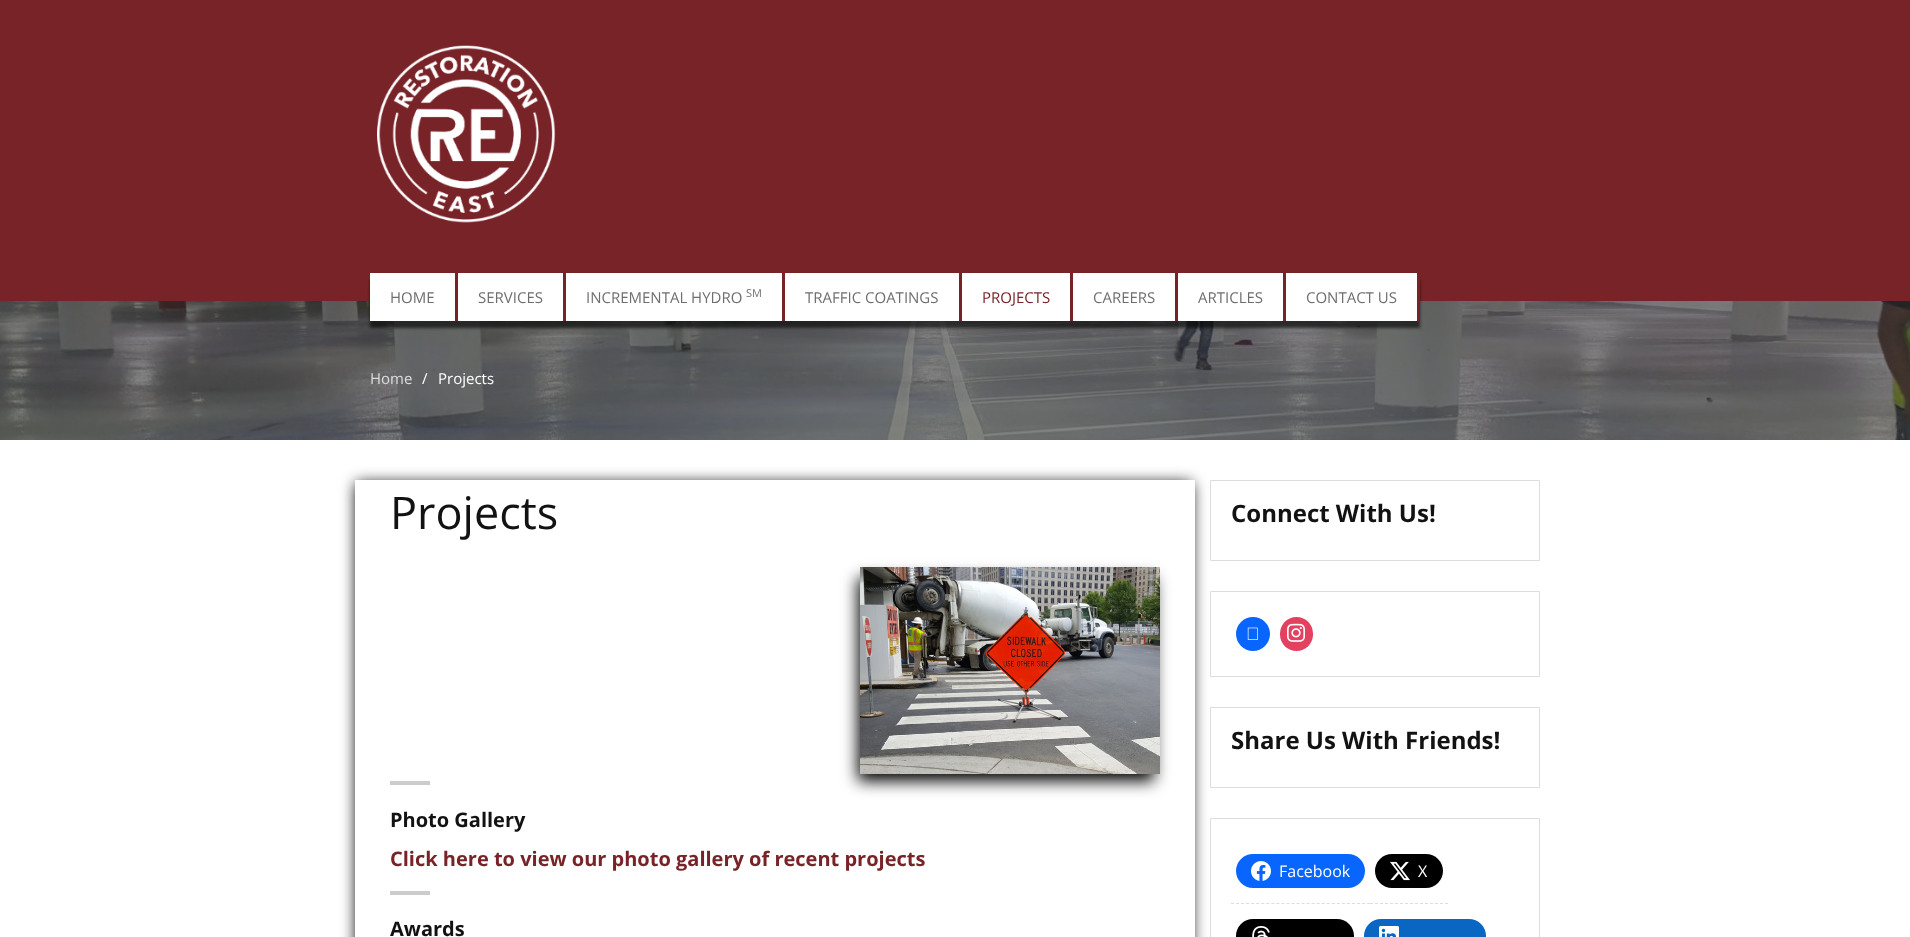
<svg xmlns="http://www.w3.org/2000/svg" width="1910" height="937">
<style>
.a{font:15px Open Sans;fill:#6e6e6e}
.b{font:11px Open Sans;fill:#6e6e6e}
.c{font:15px Open Sans;fill:#782328}
.d{font:15px Open Sans;fill:#ddd}
.e{font:15px Open Sans;fill:#fff}
.f{font:45px Open Sans;fill:#121212}
.g{font:bold 20px Open Sans;fill:#121212}
.h{font:bold 20px Open Sans;fill:#782328}
.i{font:bold 24px Open Sans;fill:#121212}
.j{font:16px Open Sans;fill:#fff}
</style>
<defs>
<clipPath id="clip1"><path d="M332 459h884v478h-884zm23 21h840v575h-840z" clip-rule="evenodd"/></clipPath>
</defs>
<rect width="100%" height="100%" fill="#fff"/>
<path fill="#782328" d="M0 0h1910v301H0z"/>
<image href="1.png" x="377" y="45" width="179" height="178"/>
<image href="2.png" x="0" y="301" width="1910" height="139"/>
<path fill="#00000099" filter="blur(1.5px)" d="M370 280h1050v48H370z"/>
<path fill="#fff" d="M370 273h1047v48H370z"/>
<path fill="#782328" d="M455 273h3v48H455z"/>
<path fill="#782328" d="M563 273h3v48H563z"/>
<path fill="#782328" d="M782 273h3v48H782z"/>
<path fill="#782328" d="M959 273h3v48H959z"/>
<path fill="#782328" d="M1070 273h3v48H1070z"/>
<path fill="#782328" d="M1175 273h3v48H1175z"/>
<path fill="#782328" d="M1283 273h3v48H1283z"/>
<path fill="#782328" d="M1417 273h3v48H1417z"/>
<g clip-path="url(#clip1)">
<path fill="#000" filter="blur(7.5px)" d="M356 483h836v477H356z"/>
</g>
<path fill="#ccc" d="M390 781h40v4H390z"/>
<path fill="#000" filter="blur(8px)" d="M858 578h296v203H858z"/>
<image href="3.png" x="860" y="567" width="300" height="207"/>
<path fill="#ccc" d="M390 891h40v4H390z"/>
<path fill="none" stroke="#ddd" d="M1210.5 480.5h329v80H1210.5z"/>
<path fill="none" stroke="#ddd" d="M1210.5 591.5h329v85H1210.5z"/>
<circle fill="#0866ff" cx="1253" cy="634" r="17"/>
<image href="4.png" x="1247" y="627" width="11" height="13"/>
<rect fill="#e4405f" x="1280" y="617" width="33" height="34" rx="16.5"/>
<image href="5.png" x="1287" y="623" width="18" height="19"/>
<path fill="none" stroke="#ddd" d="M1210.5 707.5h329v80H1210.5z"/>
<path fill="none" stroke="#ddd" d="M1210.5 818.5h329v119H1210.5z"/>
<path fill="none" stroke="#ddd" stroke-dasharray="3 2.04" d="M1231 903.5h139"/>
<rect fill="#0866ff" x="1236" y="854" width="129" height="34" rx="17"/>
<image href="6.png" x="1251" y="861" width="20" height="20"/>
<path fill="none" stroke="#ddd" stroke-dasharray="3 2" d="M1370 903.5h78"/>
<rect fill="#000" x="1375" y="854" width="68" height="34" rx="17"/>
<image href="7.png" x="1390" y="861" width="20" height="20"/>
<rect fill="#000" x="1236" y="919" width="118" height="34" rx="17"/>
<image href="8.png" x="1252" y="926" width="18" height="11"/>
<rect fill="#0966c2" x="1364" y="919" width="122" height="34" rx="17"/>
<image href="9.png" x="1379" y="926" width="20" height="11"/>
<text class="a" x="390" y="303">HOME</text>
<text class="a" x="478" y="303">SERVICES</text>
<text class="a" x="586" y="303">INCREMENTAL HYDRO</text>
<text class="b" x="746" y="297">SM</text>
<text class="a" x="805" y="303">TRAFFIC COATINGS</text>
<text class="c" x="982" y="303">PROJECTS</text>
<text class="a" x="1093" y="303">CAREERS</text>
<text class="a" x="1198" y="303">ARTICLES</text>
<text class="a" x="1306" y="303">CONTACT US</text>
<text class="d" x="370" y="384">Home</text>
<text class="e" x="422" y="384">/</text>
<text class="e" x="438" y="384">Projects</text>
<text class="f" x="390" y="529">Projects</text>
<text class="g" x="390" y="827">Photo Gallery</text>
<text class="h" x="390" y="866">Click here to view our photo gallery of recent projects</text>
<text class="g" x="390" y="936">Awards</text>
<text class="i" x="1231" y="522">Connect With Us!</text>
<text class="i" x="1231" y="749">Share Us With Friends!</text>
<text class="j" x="1279" y="877">Facebook</text>
<text class="j" x="1418" y="877">X</text>
</svg>
